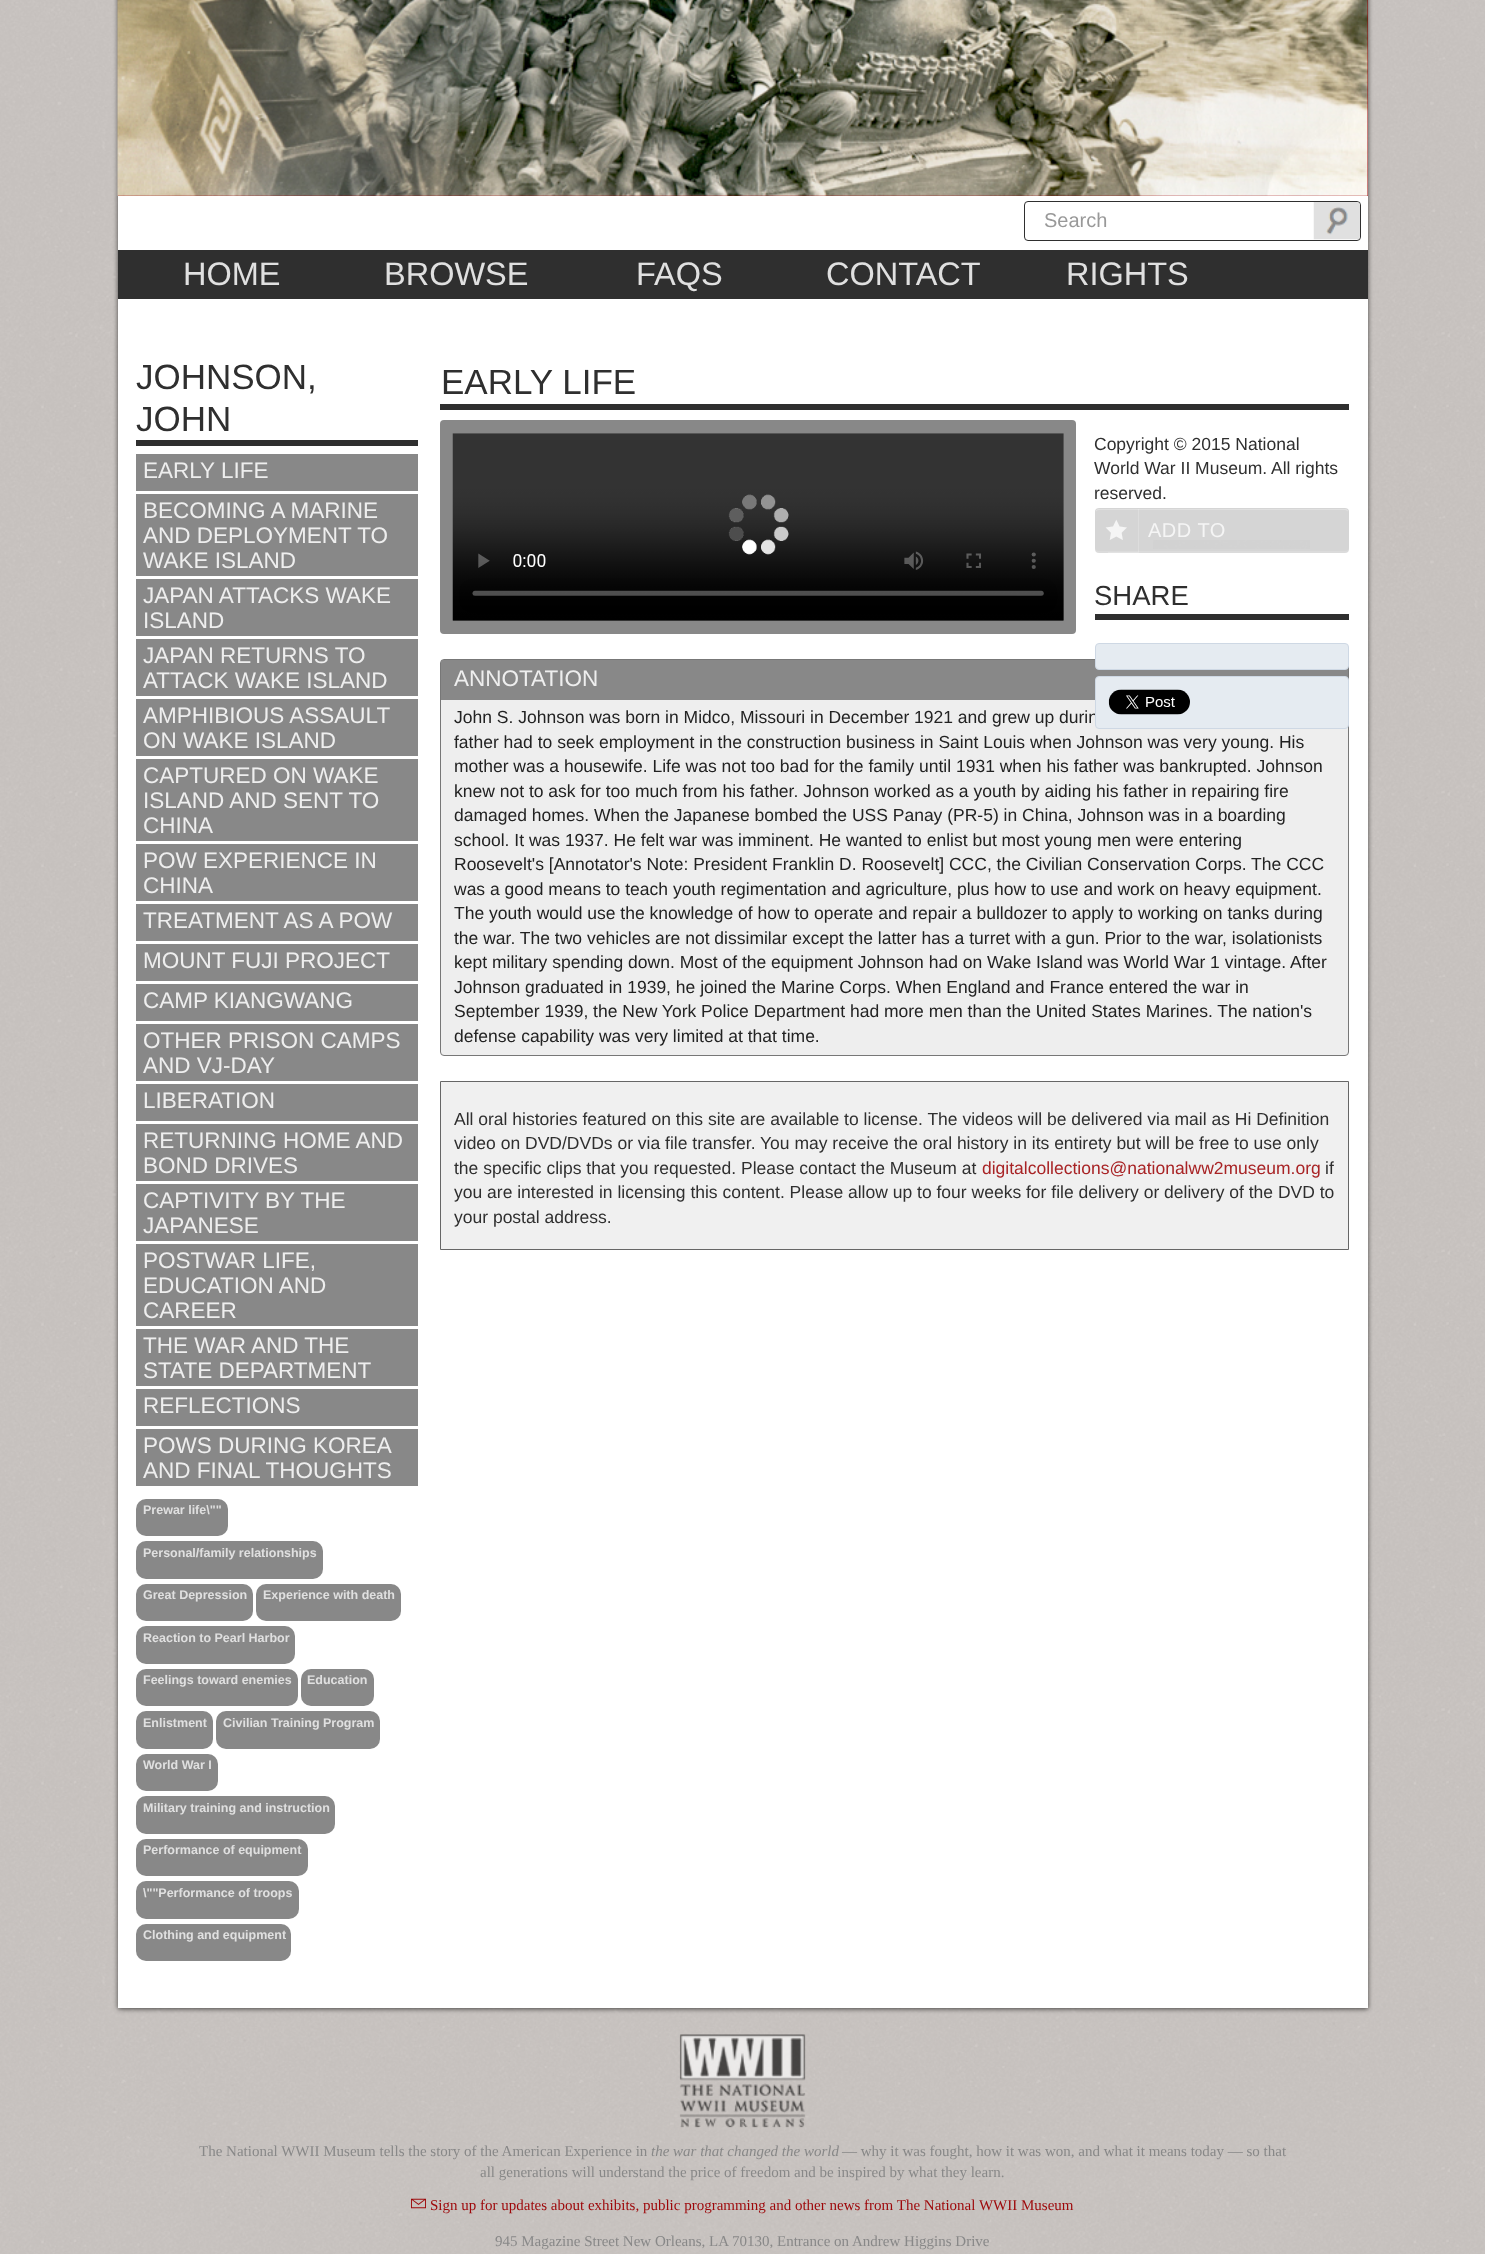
<svg xmlns="http://www.w3.org/2000/svg" width="1485" height="2254">
<style>
.a{font:20px Liberation Sans;fill:#999}
.b{font:32.5px Liberation Sans;fill:#e0e0e0}
.c{font:35px Liberation Sans;fill:#2f2f2f}
.d{font:22.5px Liberation Sans;fill:#eee}
.e{font:bold 12.5px Liberation Sans;fill:#e0e0e0}
.f{font:17.5px Liberation Sans;fill:#2f2f2f}
.g{font:bold 20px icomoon;letter-spacing:0.5px;fill:#f5f5f5}
.h{font:20px Liberation Sans;letter-spacing:0.5px;fill:#f5f5f5}
.i{font:27.5px Liberation Sans;fill:#2f2f2f}
.j{font:17.5px Liberation Sans;fill:#222}
.k{font:17.5px Liberation Sans;fill:#a82325}
.l{font:15px Liberation Serif;fill:#888}
.m{font:italic 15px Liberation Serif;fill:#888}
.n{font:15px icomoon;fill:#9d0709}
.o{font:15px Liberation Serif;fill:#9d0709}
</style>
<rect width="100%" height="100%" fill="#cbc6c3"/>
<image href="1.png" x="0" y="0" width="1485" height="2254"/>
<path fill="#000000a6" filter="blur(2.5px)" d="M118 -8h1250v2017H118z"/>
<path fill="#fff" d="M118 196h1250v1812H118z"/>
<path fill="#9d0709" d="M118 0h1250v196H118z"/>
<image href="2.png" x="117" y="0" width="1251" height="196"/>
<rect fill="none" stroke="#2f2f2f" x="1024.5" y="201.5" width="336" height="39" rx="3.5"/>
<image href="3.png" x="1313" y="202" width="47" height="38"/>
<path fill="#2f2f2f" d="M118 250h1250v49H118z"/>
<path fill="#2f2f2f" d="M136 440h282v6H136z"/>
<path fill="#888" d="M136 454h282v37H136z"/>
<path fill="#888" d="M136 494h282v82H136z"/>
<path fill="#888" d="M136 579h282v57H136z"/>
<path fill="#888" d="M136 639h282v57H136z"/>
<path fill="#888" d="M136 699h282v57H136z"/>
<path fill="#888" d="M136 759h282v82H136z"/>
<path fill="#888" d="M136 844h282v57H136z"/>
<path fill="#888" d="M136 904h282v37H136z"/>
<path fill="#888" d="M136 944h282v37H136z"/>
<path fill="#888" d="M136 984h282v37H136z"/>
<path fill="#888" d="M136 1024h282v57H136z"/>
<path fill="#888" d="M136 1084h282v37H136z"/>
<path fill="#888" d="M136 1124h282v57H136z"/>
<path fill="#888" d="M136 1184h282v57H136z"/>
<path fill="#888" d="M136 1244h282v82H136z"/>
<path fill="#888" d="M136 1329h282v57H136z"/>
<path fill="#888" d="M136 1389h282v37H136z"/>
<path fill="#888" d="M136 1429h282v57H136z"/>
<rect fill="#888" x="136" y="1499" width="92" height="37" rx="10"/>
<rect fill="#888" x="136" y="1541" width="187" height="38" rx="10"/>
<rect fill="#888" x="136" y="1584" width="117" height="37" rx="10"/>
<rect fill="#888" x="256" y="1584" width="145" height="37" rx="10"/>
<rect fill="#888" x="136" y="1626" width="159" height="38" rx="10"/>
<rect fill="#888" x="136" y="1669" width="162" height="37" rx="10"/>
<rect fill="#888" x="301" y="1669" width="73" height="37" rx="10"/>
<rect fill="#888" x="136" y="1711" width="77" height="38" rx="10"/>
<rect fill="#888" x="216" y="1711" width="164" height="38" rx="10"/>
<rect fill="#888" x="136" y="1754" width="82" height="37" rx="10"/>
<rect fill="#888" x="136" y="1796" width="199" height="38" rx="10"/>
<rect fill="#888" x="136" y="1839" width="172" height="37" rx="10"/>
<rect fill="#888" x="136" y="1881" width="163" height="38" rx="10"/>
<rect fill="#888" x="136" y="1924" width="155" height="37" rx="10"/>
<path fill="#2f2f2f" d="M440 404h909v6H440z"/>
<rect fill="#888" x="440" y="420" width="636" height="214" rx="4"/>
<image href="4.png" x="452" y="433" width="612" height="188"/>
<image href="5.png" x="728" y="494" width="61" height="61"/>
<rect fill="#ccccccb3" filter="blur(0.5px)" x="1095" y="509" width="254" height="44" rx="4"/>
<rect fill="#d5d5d5" x="1095" y="508" width="254" height="43" rx="4"/>
<image href="6.png" x="1153" y="540" width="157" height="9"/>
<path fill="#e0e0e0" d="M1099 510h246c1 0 3 1 3 2c0-2-1-3-2-3h-248l-2 1v2c0-1 1-2 3-2z"/>
<path fill="#ffffff33" d="M1108 552v1h31v-44h-1v43z"/>
<path fill="#2f2f2f" d="M1095 614h254v6H1095z"/>
<rect fill="#eee" stroke="#777" x="440.5" y="659.5" width="908" height="396" rx="3.5"/>
<path fill="#888" d="M441 660h907v40H441z"/>
<rect fill="#e5ebf1" stroke="#ced8e4" x="1095.5" y="643.5" width="253" height="26" rx="3.5"/>
<path fill="#f0f0f0" stroke="#666" d="M440.5 1081.5h908v168H440.5z"/>
<image href="8.png" x="679" y="2034" width="127" height="94"/>
<text class="a" x="1044" y="227">Search</text>
<text class="b" x="183" y="285">HOME</text>
<text class="b" x="384" y="285">BROWSE</text>
<text class="b" x="636" y="285">FAQS</text>
<text class="b" x="826" y="285">CONTACT</text>
<text class="b" x="1066" y="285">RIGHTS</text>
<text class="c" x="136" y="389">JOHNSON,</text>
<text class="c" x="136" y="431">JOHN</text>
<text class="d" x="143" y="478">EARLY LIFE</text>
<text class="d" x="143" y="518">BECOMING A MARINE</text>
<text class="d" x="143" y="543">AND DEPLOYMENT TO</text>
<text class="d" x="143" y="568">WAKE ISLAND</text>
<text class="d" x="143" y="603">JAPAN ATTACKS WAKE</text>
<text class="d" x="143" y="628">ISLAND</text>
<text class="d" x="143" y="663">JAPAN RETURNS TO</text>
<text class="d" x="143" y="688">ATTACK WAKE ISLAND</text>
<text class="d" x="143" y="723">AMPHIBIOUS ASSAULT</text>
<text class="d" x="143" y="748">ON WAKE ISLAND</text>
<text class="d" x="143" y="783">CAPTURED ON WAKE</text>
<text class="d" x="143" y="808">ISLAND AND SENT TO</text>
<text class="d" x="143" y="833">CHINA</text>
<text class="d" x="143" y="868">POW EXPERIENCE IN</text>
<text class="d" x="143" y="893">CHINA</text>
<text class="d" x="143" y="928">TREATMENT AS A POW</text>
<text class="d" x="143" y="968">MOUNT FUJI PROJECT</text>
<text class="d" x="143" y="1008">CAMP KIANGWANG</text>
<text class="d" x="143" y="1048">OTHER PRISON CAMPS</text>
<text class="d" x="143" y="1073">AND VJ-DAY</text>
<text class="d" x="143" y="1108">LIBERATION</text>
<text class="d" x="143" y="1148">RETURNING HOME AND</text>
<text class="d" x="143" y="1173">BOND DRIVES</text>
<text class="d" x="143" y="1208">CAPTIVITY BY THE</text>
<text class="d" x="143" y="1233">JAPANESE</text>
<text class="d" x="143" y="1268">POSTWAR LIFE,</text>
<text class="d" x="143" y="1293">EDUCATION AND</text>
<text class="d" x="143" y="1318">CAREER</text>
<text class="d" x="143" y="1353">THE WAR AND THE</text>
<text class="d" x="143" y="1378">STATE DEPARTMENT</text>
<text class="d" x="143" y="1413">REFLECTIONS</text>
<text class="d" x="143" y="1453">POWS DURING KOREA</text>
<text class="d" x="143" y="1478">AND FINAL THOUGHTS</text>
<text class="e" x="143" y="1514">Prewar life\""</text>
<text class="e" x="143" y="1557">Personal/family relationships</text>
<text class="e" x="143" y="1599">Great Depression</text>
<text class="e" x="263" y="1599">Experience with death</text>
<text class="e" x="143" y="1642">Reaction to Pearl Harbor</text>
<text class="e" x="143" y="1684">Feelings toward enemies</text>
<text class="e" x="307" y="1684">Education</text>
<text class="e" x="143" y="1727">Enlistment</text>
<text class="e" x="223" y="1727">Civilian Training Program</text>
<text class="e" x="143" y="1769">World War I</text>
<text class="e" x="143" y="1812">Military training and instruction</text>
<text class="e" x="143" y="1854">Performance of equipment</text>
<text class="e" x="143" y="1897">\""Performance of troops</text>
<text class="e" x="143" y="1939">Clothing and equipment</text>
<text class="c" x="441" y="394">EARLY LIFE</text>
<text class="f" x="1094" y="450">Copyright © 2015 National</text>
<text class="f" x="1094" y="474">World War II Museum. All rights</text>
<text class="f" x="1094" y="499">reserved.</text>
<text class="g" x="1106" y="539">★</text>
<text class="h" x="1148" y="537">ADD TO</text>
<text class="i" x="1094" y="605">SHARE</text>
<text class="d" x="454" y="686">ANNOTATION</text>
<text class="j" x="454" y="723">John S. Johnson was born in Midco, Missouri in December 1921 and grew up durin</text>
<rect fill="#e5ebf1" stroke="#ced8e4" x="1095.5" y="676.5" width="253" height="52" rx="3.5"/>
<image href="7.png" x="1108" y="689" width="82" height="26"/>
<text class="j" x="454" y="748">father had to seek employment in the construction business in Saint Louis when Johnson was very young. His</text>
<text class="j" x="454" y="772">mother was a housewife. Life was not too bad for the family until 1931 when his father was bankrupted. Johnson</text>
<text class="j" x="454" y="797">knew not to ask for too much from his father. Johnson worked as a youth by aiding his father in repairing fire</text>
<text class="j" x="454" y="821">damaged homes. When the Japanese bombed the USS Panay (PR-5) in China, Johnson was in a boarding</text>
<text class="j" x="454" y="846">school. It was 1937. He felt war was imminent. He wanted to enlist but most young men were entering</text>
<text class="j" x="454" y="870">Roosevelt's [Annotator's Note: President Franklin D. Roosevelt] CCC, the Civilian Conservation Corps. The CCC</text>
<text class="j" x="454" y="895">was a good means to teach youth regimentation and agriculture, plus how to use and work on heavy equipment.</text>
<text class="j" x="454" y="919">The youth would use the knowledge of how to operate and repair a bulldozer to apply to working on tanks during</text>
<text class="j" x="454" y="944">the war. The two vehicles are not dissimilar except the latter has a turret with a gun. Prior to the war, isolationists</text>
<text class="j" x="454" y="968">kept military spending down. Most of the equipment Johnson had on Wake Island was World War 1 vintage. After</text>
<text class="j" x="454" y="993">Johnson graduated in 1939, he joined the Marine Corps. When England and France entered the war in</text>
<text class="j" x="454" y="1017">September 1939, the New York Police Department had more men than the United States Marines. The nation's</text>
<text class="j" x="454" y="1042">defense capability was very limited at that time.</text>
<text class="f" x="454" y="1125">All oral histories featured on this site are available to license. The videos will be delivered via mail as Hi Definition</text>
<text class="f" x="454" y="1149">video on DVD/DVDs or via file transfer. You may receive the oral history in its entirety but will be free to use only</text>
<text class="f" x="454" y="1174">the specific clips that you requested. Please contact the Museum at</text>
<text class="k" x="982" y="1174">digitalcollections@nationalww2museum.org</text>
<text class="f" x="1325" y="1174">if</text>
<text class="f" x="454" y="1198">you are interested in licensing this content. Please allow up to four weeks for file delivery or delivery of the DVD to</text>
<text class="f" x="454" y="1223">your postal address.</text>
<text class="l" x="199" y="2156">The National WWII Museum tells the story of the American Experience in</text>
<text class="m" x="651" y="2156">the war that changed the world</text>
<text class="l" x="842" y="2156">— why it was fought, how it was won, and what it means today — so that</text>
<text class="l" x="480" y="2177">all generations will understand the price of freedom and be inspired by what they learn.</text>
<text class="n" x="411" y="2210">?</text>
<text class="o" x="430" y="2210">Sign up for updates about exhibits, public programming and other news from The National WWII Museum</text>
<text class="l" x="495" y="2246">945 Magazine Street New Orleans, LA 70130, Entrance on Andrew Higgins Drive</text>
</svg>
